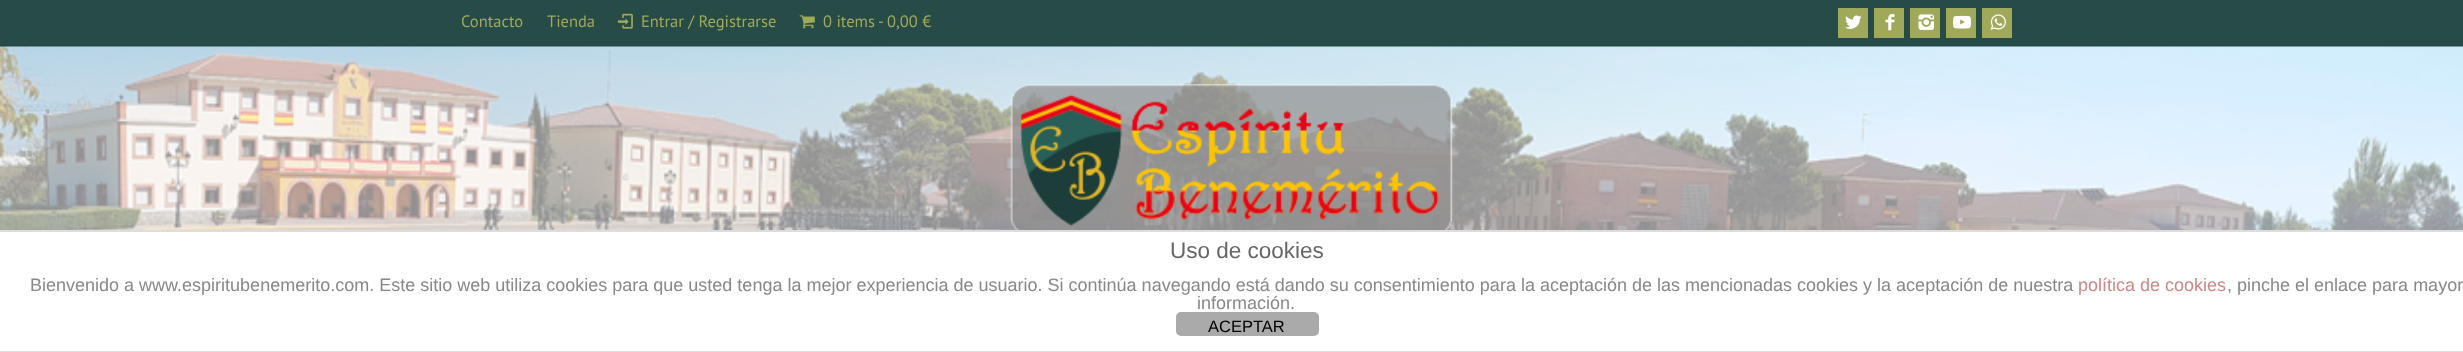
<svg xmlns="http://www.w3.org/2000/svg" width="2463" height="352">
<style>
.a{font:16.5px PT Sans;fill:#a0a959}
.b{font:22.5px Liberation Sans;fill:#666}
.c{font:18px Liberation Sans;fill:#888}
.d{font:18px Liberation Sans;fill:#c88}
.e{font:16.5px Liberation Sans;fill:#000}
</style>
<rect width="100%" height="100%" fill="#274b47"/>
<path fill="#254844" d="M0 45h2463v2H0z"/>
<image href="1.png" x="618" y="13" width="15" height="16"/>
<image href="2.png" x="799" y="15" width="16" height="14"/>
<path fill="#a0a959" d="M1838 8h30v30H1838z"/>
<image href="3.png" x="1845" y="15" width="17" height="14"/>
<path fill="#a0a959" d="M1874 8h30v30H1874z"/>
<image href="4.png" x="1885" y="14" width="10" height="17"/>
<path fill="#a0a959" d="M1910 8h30v30H1910z"/>
<image href="5.png" x="1918" y="14" width="16" height="16"/>
<path fill="#a0a959" d="M1946 8h30v30H1946z"/>
<image href="6.png" x="1953" y="15" width="18" height="14"/>
<path fill="#a0a959" d="M1982 8h30v30H1982z"/>
<image href="7.png" x="1990" y="14" width="16" height="16"/>
<image href="8.png" x="0" y="46" width="2463" height="184"/>
<image href="9.png" x="1010" y="84" width="443" height="146"/>
<path fill="#fff" d="M0 232h2463v119H0z"/>
<path fill="#ddd" d="M0 230h2463v2H0z"/>
<path fill="#ddd" d="M0 351h2463v1H0z"/>
<rect fill="#aaa" x="1176" y="312" width="143" height="24" rx="5"/>
<text class="a" x="461" y="27">Contacto</text>
<text class="a" x="547" y="27">Tienda</text>
<text class="a" x="641" y="27">Entrar / Registrarse</text>
<text class="a" x="823" y="27">0 items - 0,00 €</text>
<text class="b" x="1170" y="258">Uso de cookies</text>
<text class="c" x="30" y="291">Bienvenido a www.espiritubenemerito.com. Este sitio web utiliza cookies para que usted tenga la mejor experiencia de usuario. Si continúa navegando está dando su consentimiento para la aceptación de las mencionadas cookies y la aceptación de nuestra</text>
<text class="d" x="2078" y="291">política de cookies</text>
<text class="c" x="2227" y="291">, pinche el enlace para mayor</text>
<text class="c" x="1197" y="309">información.</text>
<text class="e" x="1208" y="332">ACEPTAR</text>
</svg>
